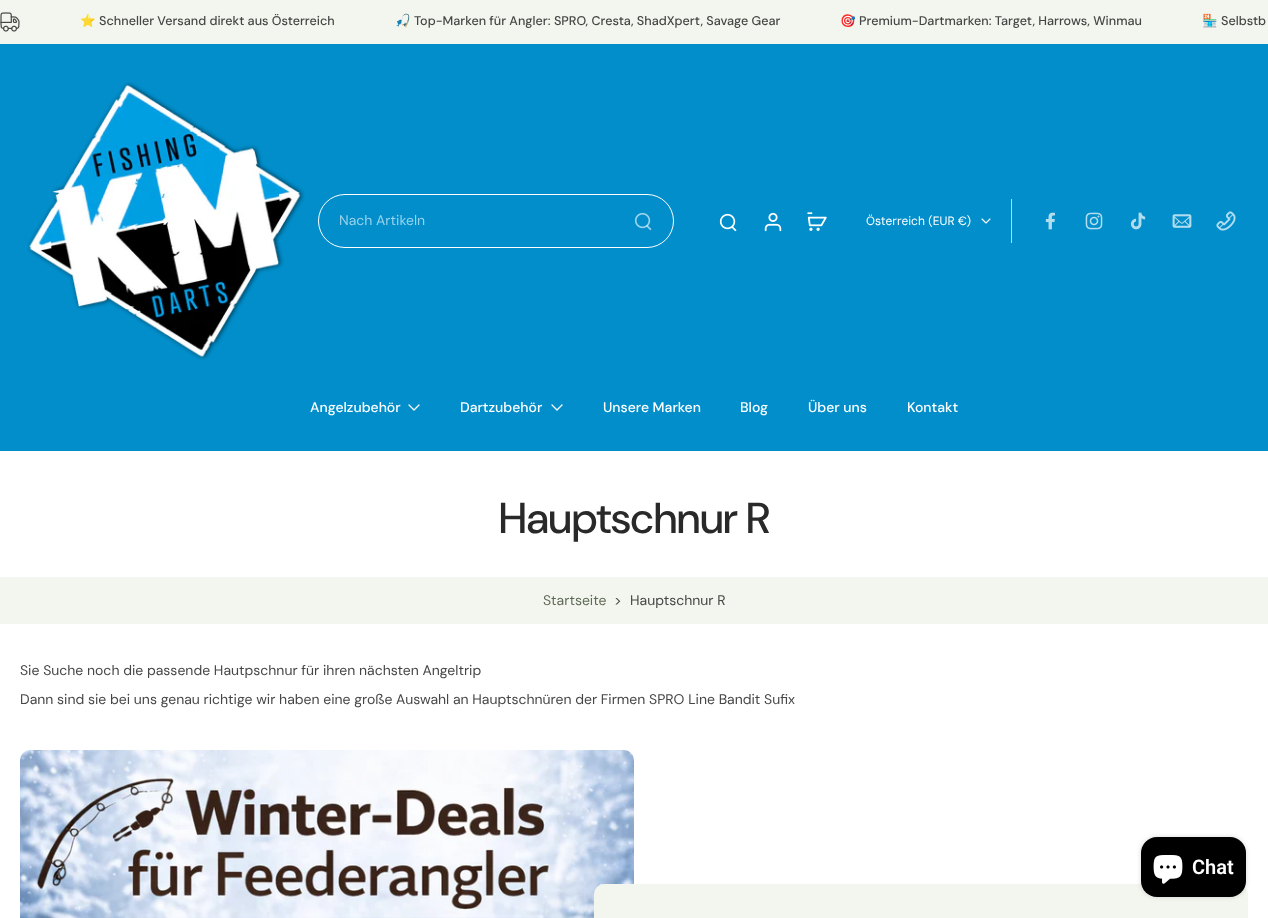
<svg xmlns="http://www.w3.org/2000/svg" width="1268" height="918">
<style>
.a{font:12.6px Noto Color Emoji;fill:#454645}
.b{font:500 12.6px 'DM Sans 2';fill:#454645}
.c{font:14px DM Sans;fill:#99d2ea}
.d{font:12px 'DM Sans 2';fill:#fff}
.e{font:500 14px 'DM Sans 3';fill:#fff}
.f{font:500 43.25px DM Sans;fill:#282928}
.g{font:14px DM Sans;fill:#606b57}
.h{font:14px DM Sans;fill:#454645}
.i{font:600 20px Roboto;fill:#fff}
</style>
<rect width="100%" height="100%" fill="#fff"/>
<path fill="#f3f6ef" d="M0 0h1268v44H0z"/>
<image href="1.png" x="0" y="12" width="20" height="20"/>
<path fill="#018ecb" d="M0 44h1268v407H0z"/>
<image href="2.png" x="27" y="82" width="278" height="278"/>
<rect fill="none" stroke="#fff" x="318.5" y="194.5" width="355" height="53" rx="26.5"/>
<image href="3.png" x="634" y="212" width="18" height="19"/>
<image href="4.png" x="719" y="213" width="18" height="19"/>
<image href="5.png" x="764" y="212" width="18" height="20"/>
<image href="6.png" x="807" y="212" width="20" height="19"/>
<path fill="none" stroke="#fff" stroke-width="1.1" stroke-linecap="round" stroke-linejoin="round" d="M982 219l4 4l4-4"/>
<path fill="#b3ddef" d="M1011 199h1v44H1011z"/>
<image href="7.png" x="1045" y="212" width="10" height="18"/>
<image href="8.png" x="1085" y="212" width="18" height="18"/>
<image href="9.png" x="1130" y="212" width="16" height="18"/>
<image href="10.png" x="1172" y="214" width="20" height="14"/>
<image href="11.png" x="1216" y="211" width="20" height="20"/>
<path fill="none" stroke="#fff" stroke-width="1.3" stroke-linecap="round" stroke-linejoin="round" d="M409 405l5 5l5-5"/>
<path fill="none" stroke="#fff" stroke-width="1.3" stroke-linecap="round" stroke-linejoin="round" d="M552 405l5 5l5-5"/>
<path fill="#f3f6ef" d="M0 577h1268v47H0z"/>
<image href="12.png" x="20" y="750" width="614" height="168"/>
<rect fill="#f3f6ef" x="594" y="884" width="654" height="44" rx="10"/>
<rect fill="#00000026" filter="blur(2.5px)" x="1141" y="837" width="105" height="60" rx="16"/>
<rect fill="#000" x="1141" y="837" width="105" height="60" rx="16"/>
<image href="13.png" x="1153" y="855" width="30" height="29"/>
<text class="a" x="80" y="25">⭐</text>
<text class="b" x="99" y="25">Schneller Versand direkt aus Österreich</text>
<text class="a" x="395" y="25">🎣</text>
<text class="b" x="414" y="25">Top-Marken für Angler: SPRO, Cresta, ShadXpert, Savage Gear</text>
<text class="a" x="840" y="25">🎯</text>
<text class="b" x="859" y="25">Premium-Dartmarken: Target, Harrows, Winmau</text>
<text class="a" x="1202" y="25">🏪</text>
<text class="b" x="1221" y="25">Selbstb</text>
<text class="c" x="339" y="225">Nach Artikeln</text>
<text class="d" x="866" y="225">Österreich (EUR €)</text>
<text class="e" x="310" y="412">Angelzubehör</text>
<text class="e" x="460" y="412">Dartzubehör</text>
<text class="e" x="603" y="412">Unsere Marken</text>
<text class="e" x="740" y="412">Blog</text>
<text class="e" x="808" y="412">Über uns</text>
<text class="e" x="907" y="412">Kontakt</text>
<text class="f" x="499" y="533">Hauptschnur R</text>
<text class="g" x="543" y="605">Startseite</text>
<text class="h" x="614" y="605">&gt;</text>
<text class="h" x="630" y="605">Hauptschnur R</text>
<text class="h" x="20" y="675">Sie Suche noch die passende Hautpschnur für ihren nächsten Angeltrip</text>
<text class="h" x="20" y="704">Dann sind sie bei uns genau richtige wir haben eine große Auswahl an Hauptschnüren der Firmen SPRO Line Bandit Sufix</text>
<text class="i" x="1192" y="874">Chat</text>
</svg>
